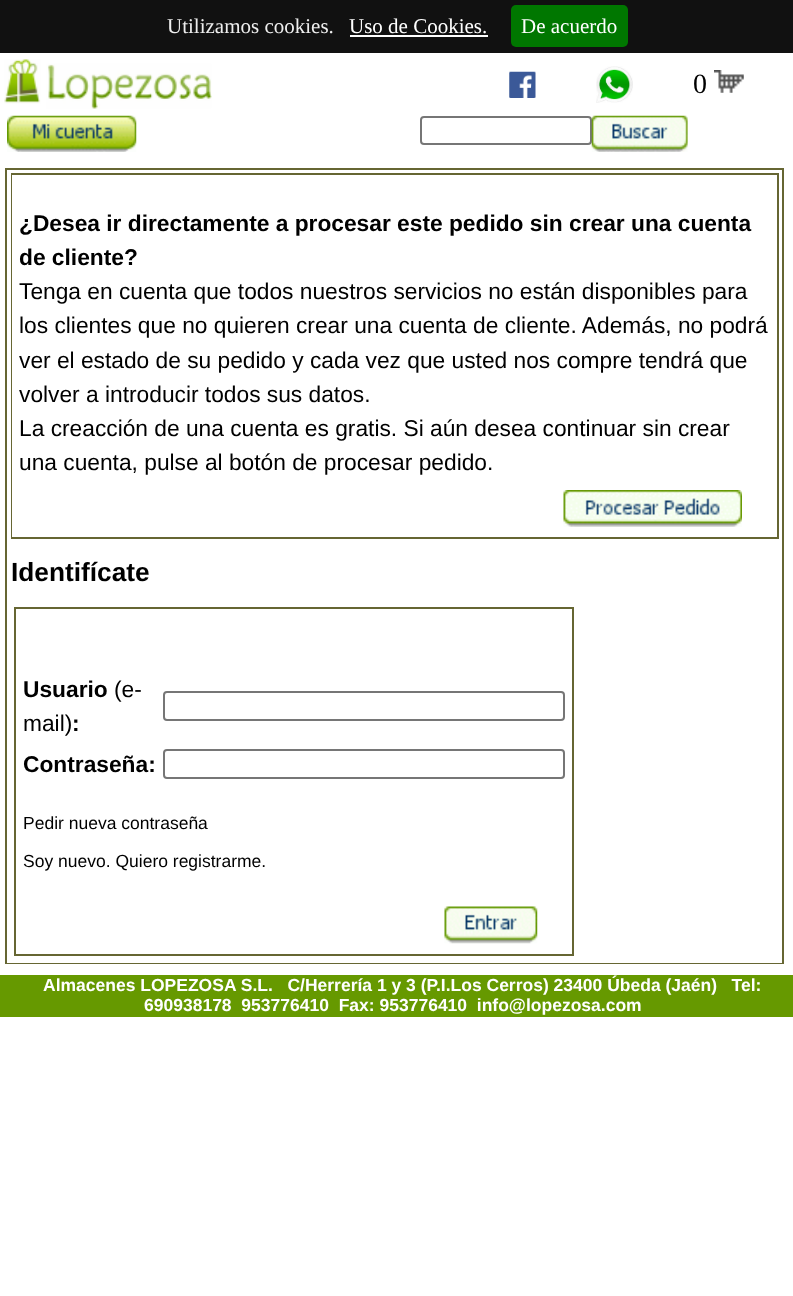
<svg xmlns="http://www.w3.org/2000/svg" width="793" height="1296">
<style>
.a{font:21px Liberation Serif;fill:#eee}
.b{font:21px Liberation Serif;fill:#fff}
.c{font:28px Liberation Serif;fill:#000}
.d{font:bold 22.75px Liberation Sans;fill:#000}
.e{font:22.75px Liberation Sans;fill:#000}
.f{font:bold 26.25px Liberation Sans;fill:#000}
.g{font:17.5px Liberation Sans;fill:#000}
.h{font:bold 17.5px Liberation Sans;fill:#fff}
</style>
<rect width="100%" height="100%" fill="#fff"/>
<path fill="#111" d="M0 0h793v53H0z"/>
<path fill="#fff" d="M350 35h138v2H350z"/>
<rect fill="#070" x="511" y="5" width="117" height="42" rx="5"/>
<image href="1.png" x="4" y="59" width="208" height="50"/>
<image href="2.png" x="509" y="71" width="27" height="27"/>
<image href="3.png" x="596" y="66" width="37" height="37"/>
<image href="4.png" x="714" y="70" width="30" height="23"/>
<image href="5.png" x="7" y="115" width="130" height="37"/>
<rect fill="none" stroke="#767676" stroke-width="2" x="421" y="117" width="170" height="27" rx="3"/>
<image href="6.png" x="591" y="115" width="97" height="37"/>
<path fill="#663" d="M5 168h779v796H5z"/>
<path fill="#fff" d="M7 170h775v793H7z"/>
<path fill="#663" d="M11 173h768v366H11z"/>
<path fill="#fff" d="M12 175h765v362H12z"/>
<image href="7.png" x="563" y="490" width="179" height="37"/>
<path fill="#663" d="M14 607h560v349H14z"/>
<path fill="#fff" d="M16 609h556v345H16z"/>
<rect fill="none" stroke="#767676" stroke-width="2" x="164" y="692" width="400" height="28" rx="3"/>
<rect fill="none" stroke="#767676" stroke-width="2" x="164" y="750" width="400" height="28" rx="3"/>
<image href="8.png" x="444" y="906" width="94" height="38"/>
<path fill="#690" d="M0 975h793v42H0z"/>
<text class="a" x="167" y="33">Utilizamos cookies.</text>
<text class="b" x="349" y="33">Uso de Cookies.</text>
<text class="b" x="521" y="33">De acuerdo</text>
<text class="c" x="693" y="93">0</text>
<text class="d" x="19" y="231">¿Desea ir directamente a procesar este pedido sin crear una cuenta</text>
<text class="d" x="19" y="265">de cliente?</text>
<text class="e" x="19" y="299">Tenga en cuenta que todos nuestros servicios no están disponibles para</text>
<text class="e" x="19" y="333">los clientes que no quieren crear una cuenta de cliente. Además, no podrá</text>
<text class="e" x="19" y="368">ver el estado de su pedido y cada vez que usted nos compre tendrá que</text>
<text class="e" x="19" y="402">volver a introducir todos sus datos.</text>
<text class="e" x="19" y="436">La creacción de una cuenta es gratis. Si aún desea continuar sin crear</text>
<text class="e" x="19" y="470">una cuenta, pulse al botón de procesar pedido.</text>
<text class="f" x="11" y="581">Identifícate</text>
<text class="d" x="23" y="697">Usuario</text>
<text class="e" x="114" y="697">(e-</text>
<text class="e" x="23" y="731">mail)</text>
<text class="d" x="72" y="731">:</text>
<text class="d" x="23" y="772">Contraseña:</text>
<text class="g" x="23" y="829">Pedir nueva contraseña</text>
<text class="g" x="23" y="867">Soy nuevo. Quiero registrarme.</text>
<text class="h" xml:space="preserve" x="43" y="991">Almacenes LOPEZOSA S.L.   C/Herrería 1 y 3 (P.I.Los Cerros) 23400 Úbeda (Jaén)   Tel:</text>
<text class="h" xml:space="preserve" x="144" y="1011">690938178  953776410  Fax: 953776410  info@lopezosa.com</text>
</svg>
